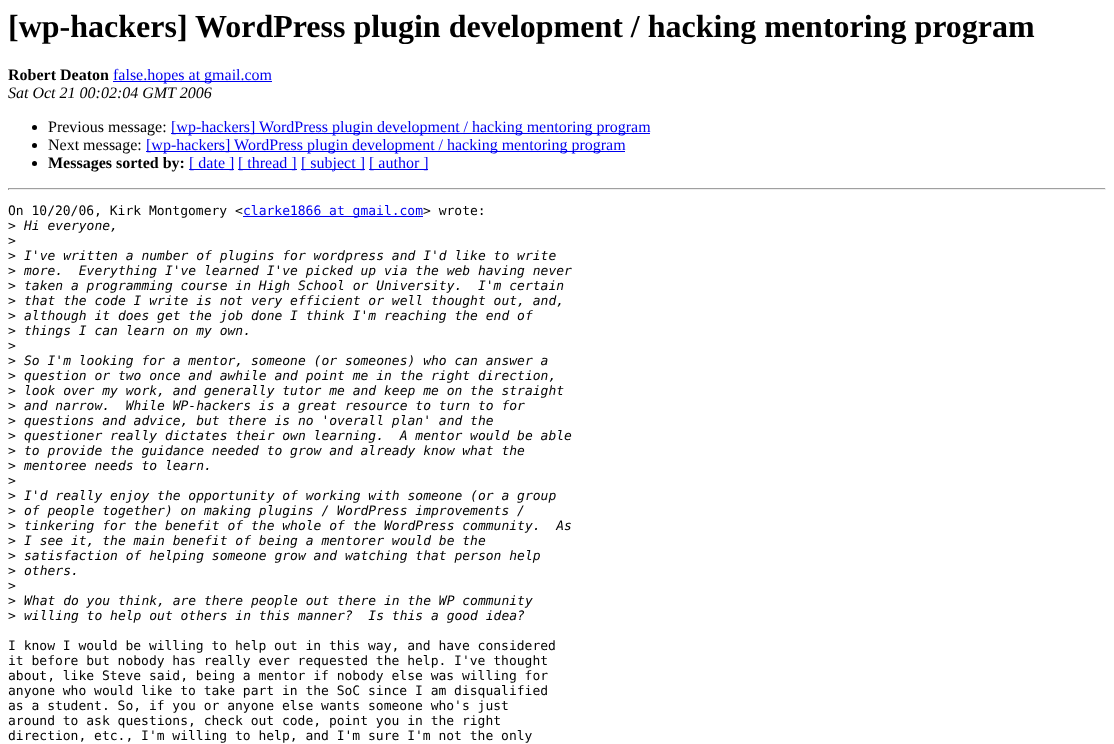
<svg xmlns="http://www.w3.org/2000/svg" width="1114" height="744">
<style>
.a{font:bold 32px Liberation Serif;fill:#000}
.b{font:bold 16px Liberation Serif;fill:#000}
.c{font:16px Liberation Serif;fill:#00e}
.d{font:italic 16px Liberation Serif;fill:#000}
.e{font:16px Liberation Serif;fill:#000}
.f{font:13px DejaVu Sans Mono;fill:#000}
.g{font:13px DejaVu Sans Mono;fill:#00e}
.h{font:italic 13px DejaVu Sans Mono;fill:#000}
</style>
<rect width="100%" height="100%" fill="#fff"/>
<path fill="#00e" d="M113 81h159v1H113z"/>
<circle fill="#000" cx="34.5" cy="127.5" r="2.5"/>
<path fill="#00e" d="M171 133h479v1H171z"/>
<circle fill="#000" cx="34.5" cy="145.5" r="2.5"/>
<path fill="#00e" d="M146 151h479v1H146z"/>
<circle fill="#000" cx="34.5" cy="163.5" r="2.5"/>
<path fill="#00e" d="M189 169h45v1H189z"/>
<path fill="#00e" d="M238 169h59v1H238z"/>
<path fill="#00e" d="M301 169h64v1H301z"/>
<path fill="#00e" d="M369 169h59v1H369z"/>
<path fill="#9f9f9f" d="M8 188h1098v1H8z"/>
<path fill="#eee" d="M1105 188h1v2H1105z"/>
<path fill="#eee" d="M8 189h1098v1H8z"/>
<path fill="#9f9f9f" d="M8 188h1v2H8z"/>
<path fill="#00e" d="M243 216h180v1H243z"/>
<text class="a" x="8" y="37">[wp-hackers] WordPress plugin development / hacking mentoring program</text>
<text class="b" x="8" y="80">Robert Deaton</text>
<text class="c" x="113" y="80">false.hopes at gmail.com</text>
<text class="d" x="8" y="98">Sat Oct 21 00:02:04 GMT 2006</text>
<text class="e" x="48" y="132">Previous message:</text>
<text class="c" x="171" y="132">[wp-hackers] WordPress plugin development / hacking mentoring program</text>
<text class="e" x="48" y="150">Next message:</text>
<text class="c" x="146" y="150">[wp-hackers] WordPress plugin development / hacking mentoring program</text>
<text class="b" x="48" y="168">Messages sorted by:</text>
<text class="c" x="189" y="168">[ date ]</text>
<text class="c" x="238" y="168">[ thread ]</text>
<text class="c" x="301" y="168">[ subject ]</text>
<text class="c" x="369" y="168">[ author ]</text>
<text class="f" x="8" y="215">On 10/20/06, Kirk Montgomery &lt;</text>
<text class="g" x="243" y="215">clarke1866 at gmail.com</text>
<text class="f" x="423" y="215">&gt; wrote:</text>
<text class="f" x="8" y="230">&gt;</text>
<text class="h" x="24" y="230">Hi everyone,</text>
<text class="f" x="8" y="245">&gt;</text>
<text class="f" x="8" y="260">&gt;</text>
<text class="h" x="24" y="260">I've written a number of plugins for wordpress and I'd like to write</text>
<text class="f" x="8" y="275">&gt;</text>
<text class="h" xml:space="preserve" x="24" y="275">more.  Everything I've learned I've picked up via the web having never</text>
<text class="f" x="8" y="290">&gt;</text>
<text class="h" xml:space="preserve" x="24" y="290">taken a programming course in High School or University.  I'm certain</text>
<text class="f" x="8" y="305">&gt;</text>
<text class="h" x="24" y="305">that the code I write is not very efficient or well thought out, and,</text>
<text class="f" x="8" y="320">&gt;</text>
<text class="h" x="24" y="320">although it does get the job done I think I'm reaching the end of</text>
<text class="f" x="8" y="335">&gt;</text>
<text class="h" x="24" y="335">things I can learn on my own.</text>
<text class="f" x="8" y="350">&gt;</text>
<text class="f" x="8" y="365">&gt;</text>
<text class="h" x="24" y="365">So I'm looking for a mentor, someone (or someones) who can answer a</text>
<text class="f" x="8" y="380">&gt;</text>
<text class="h" x="24" y="380">question or two once and awhile and point me in the right direction,</text>
<text class="f" x="8" y="395">&gt;</text>
<text class="h" x="24" y="395">look over my work, and generally tutor me and keep me on the straight</text>
<text class="f" x="8" y="410">&gt;</text>
<text class="h" xml:space="preserve" x="24" y="410">and narrow.  While WP-hackers is a great resource to turn to for</text>
<text class="f" x="8" y="425">&gt;</text>
<text class="h" x="24" y="425">questions and advice, but there is no 'overall plan' and the</text>
<text class="f" x="8" y="440">&gt;</text>
<text class="h" xml:space="preserve" x="24" y="440">questioner really dictates their own learning.  A mentor would be able</text>
<text class="f" x="8" y="455">&gt;</text>
<text class="h" x="24" y="455">to provide the guidance needed to grow and already know what the</text>
<text class="f" x="8" y="470">&gt;</text>
<text class="h" x="24" y="470">mentoree needs to learn.</text>
<text class="f" x="8" y="485">&gt;</text>
<text class="f" x="8" y="500">&gt;</text>
<text class="h" x="24" y="500">I'd really enjoy the opportunity of working with someone (or a group</text>
<text class="f" x="8" y="515">&gt;</text>
<text class="h" x="24" y="515">of people together) on making plugins / WordPress improvements /</text>
<text class="f" x="8" y="530">&gt;</text>
<text class="h" xml:space="preserve" x="24" y="530">tinkering for the benefit of the whole of the WordPress community.  As</text>
<text class="f" x="8" y="545">&gt;</text>
<text class="h" x="24" y="545">I see it, the main benefit of being a mentorer would be the</text>
<text class="f" x="8" y="560">&gt;</text>
<text class="h" x="24" y="560">satisfaction of helping someone grow and watching that person help</text>
<text class="f" x="8" y="575">&gt;</text>
<text class="h" x="24" y="575">others.</text>
<text class="f" x="8" y="590">&gt;</text>
<text class="f" x="8" y="605">&gt;</text>
<text class="h" x="24" y="605">What do you think, are there people out there in the WP community</text>
<text class="f" x="8" y="620">&gt;</text>
<text class="h" xml:space="preserve" x="24" y="620">willing to help out others in this manner?  Is this a good idea?</text>
<text class="f" x="8" y="650">I know I would be willing to help out in this way, and have considered</text>
<text class="f" x="8" y="665">it before but nobody has really ever requested the help. I've thought</text>
<text class="f" x="8" y="680">about, like Steve said, being a mentor if nobody else was willing for</text>
<text class="f" x="8" y="695">anyone who would like to take part in the SoC since I am disqualified</text>
<text class="f" x="8" y="710">as a student. So, if you or anyone else wants someone who's just</text>
<text class="f" x="8" y="725">around to ask questions, check out code, point you in the right</text>
<text class="f" x="8" y="740">direction, etc., I'm willing to help, and I'm sure I'm not the only</text>
</svg>
